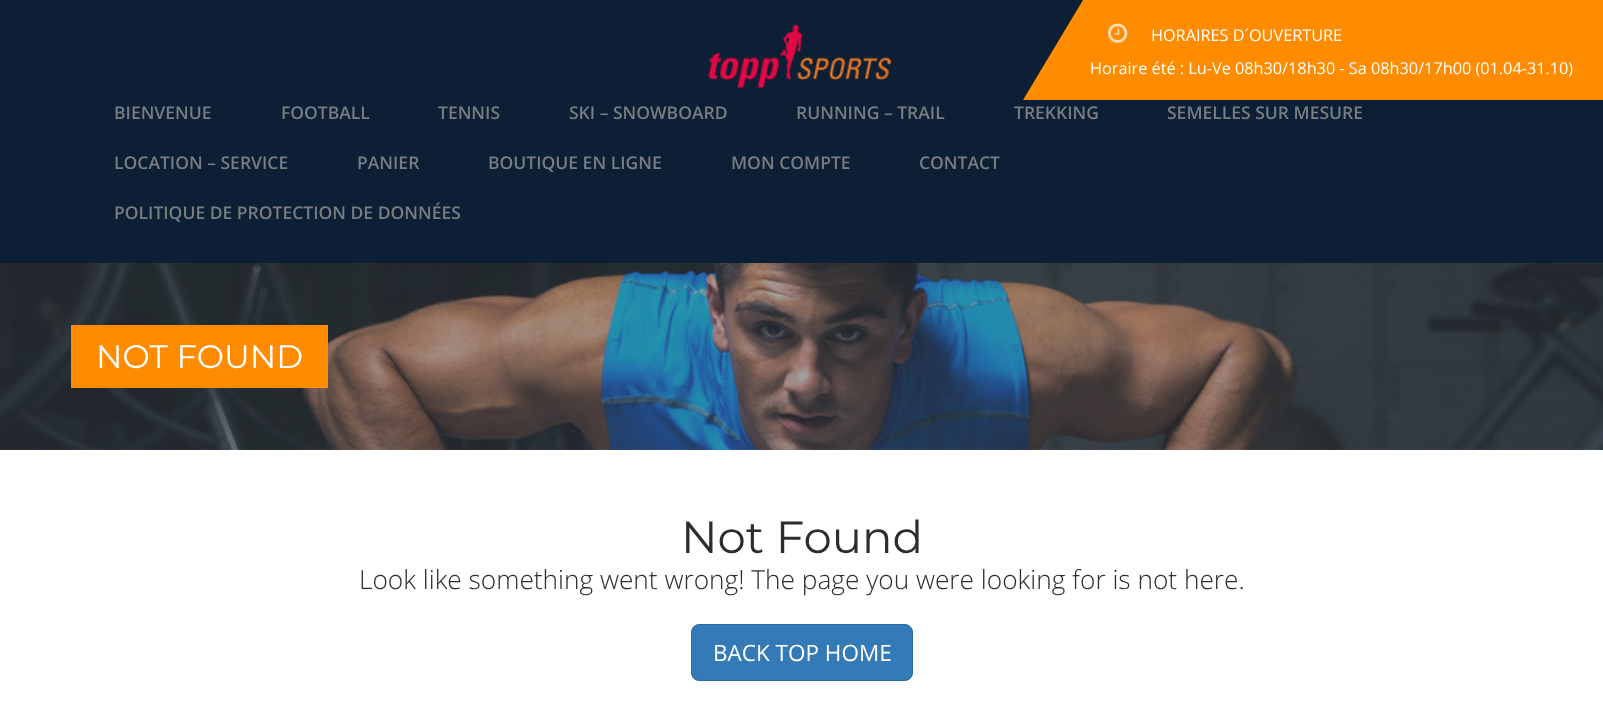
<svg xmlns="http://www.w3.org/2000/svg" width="1603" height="711">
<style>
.a{font:16.25px Open Sans;fill:#fff}
.b{font:600 17.5px Open Sans;fill:#777d83}
.c{font:32.5px Montserrat;fill:#fff}
.d{font:45px Montserrat;fill:#2d2d2d}
.e{font:300 26.25px Open Sans;fill:#2d2d2d}
.f{font:22.5px Open Sans;fill:#fff}
</style>
<rect width="100%" height="100%" fill="#fff"/>
<path fill="#0c1f34" d="M0 0h1603v263H0z"/>
<path fill="#ff8c00" d="M1083 0h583l-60 100h-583z"/>
<image href="1.png" x="1108" y="23" width="20" height="20"/>
<image href="2.png" x="708" y="25" width="184" height="63"/>
<image href="3.png" x="0" y="263" width="1603" height="187"/>
<path fill="#ff8c00" d="M71 325h257v63H71z"/>
<rect fill="#337ab7" stroke="#2e6da4" x="691.5" y="624.5" width="221" height="56" rx="7.5"/>
<text class="a" x="1151" y="41">HORAIRES D´OUVERTURE</text>
<text class="a" x="1090" y="74">Horaire été : Lu-Ve 08h30/18h30 - Sa 08h30/17h00 (01.04-31.10)</text>
<text class="b" x="114" y="119">BIENVENUE</text>
<text class="b" x="281" y="119">FOOTBALL</text>
<text class="b" x="438" y="119">TENNIS</text>
<text class="b" x="569" y="119">SKI – SNOWBOARD</text>
<text class="b" x="796" y="119">RUNNING – TRAIL</text>
<text class="b" x="1014" y="119">TREKKING</text>
<text class="b" x="1167" y="119">SEMELLES SUR MESURE</text>
<text class="b" x="114" y="169">LOCATION – SERVICE</text>
<text class="b" x="357" y="169">PANIER</text>
<text class="b" x="488" y="169">BOUTIQUE EN LIGNE</text>
<text class="b" x="731" y="169">MON COMPTE</text>
<text class="b" x="919" y="169">CONTACT</text>
<text class="b" x="114" y="219">POLITIQUE DE PROTECTION DE DONNÉES</text>
<text class="c" x="96" y="368">NOT FOUND</text>
<text class="d" x="681" y="553">Not Found</text>
<text class="e" x="359" y="589">Look like something went wrong! The page you were looking for is not here.</text>
<text class="f" x="713" y="661">BACK TOP HOME</text>
</svg>
